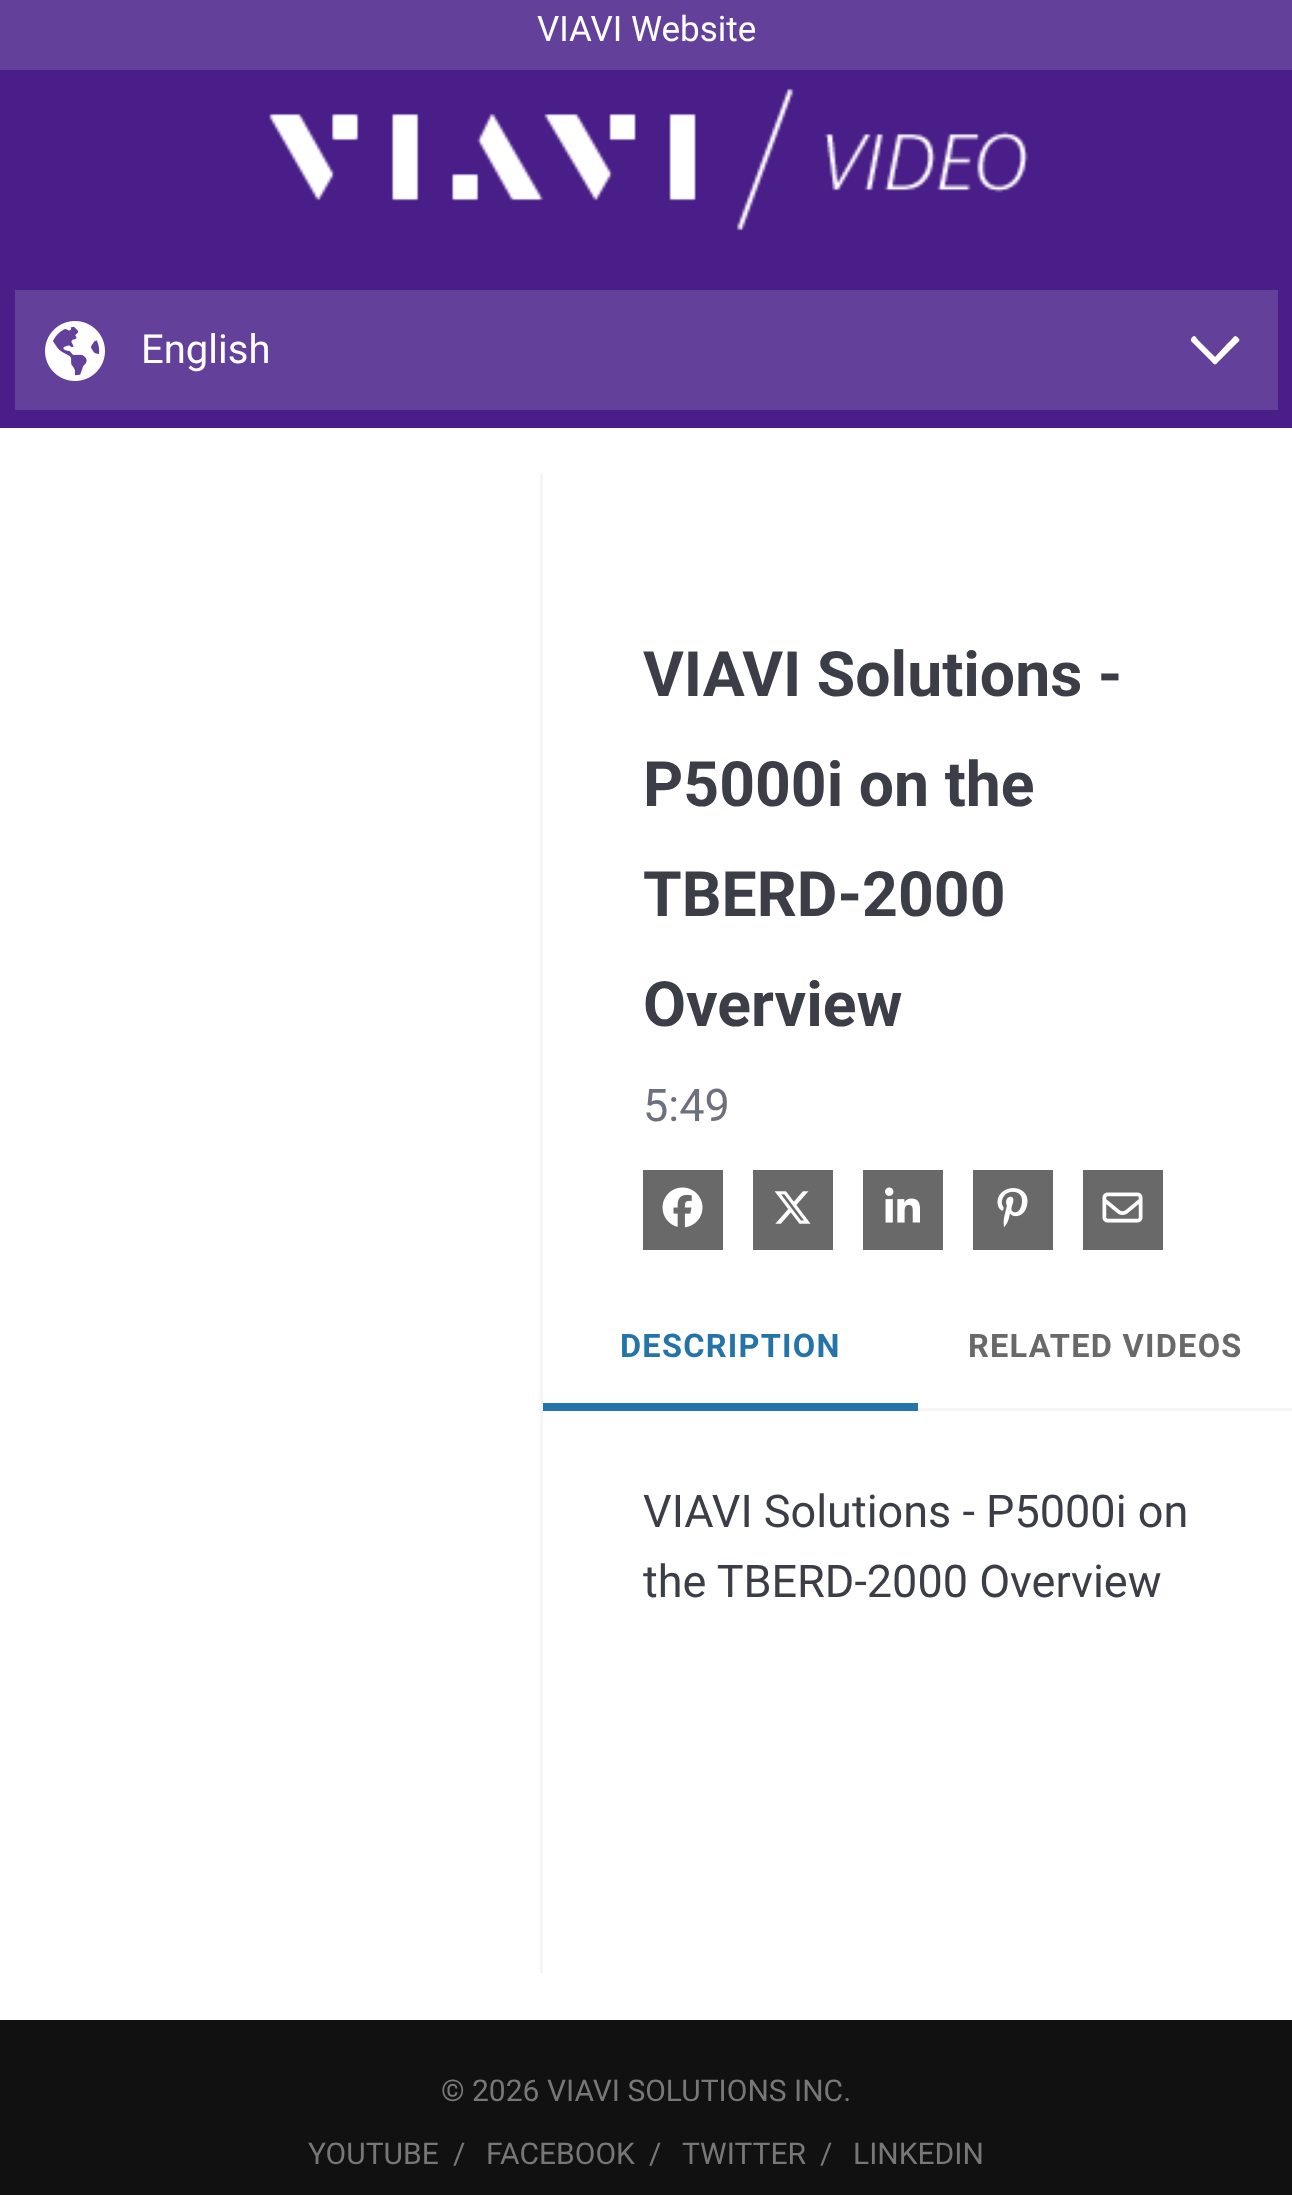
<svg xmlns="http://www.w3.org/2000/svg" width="1292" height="2195">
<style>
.a{font:35px Roboto;fill:#fff}
.b{font:40px Roboto;fill:#fff}
.c{font:bold 62.5px Roboto;fill:#3c3e47}
.d{font:45px Roboto;fill:#6d707d}
.e{font:bold 32.5px Roboto;letter-spacing:1.25px;fill:#2574a9}
.f{font:bold 32.5px Roboto;letter-spacing:1.25px;fill:#696969}
.g{font:45px Roboto;fill:#3c3e47}
.h{font:30px Roboto;fill:#777}
</style>
<defs>
<clipPath id="clip1"><path d="M643 1478h550v140H643z"/></clipPath>
</defs>
<rect width="100%" height="100%" fill="#fff"/>
<path fill="#491e88" d="M0 70h1292v358H0z"/>
<path fill="#634099" d="M0 0h1292v70H0z"/>
<image href="1.png" x="269" y="88" width="760" height="143"/>
<path fill="#634099" d="M15 290h1263v120H15z"/>
<image href="2.png" x="45" y="321" width="60" height="60"/>
<path fill="#fff" d="M1239 339c-5-6-4-2-11 4l-13 14l-17-17c-3-4-4-6-7-1v2l19 19c6 6 4 6 10 0l15-15c2-2 6-5 4-6z"/>
<path fill="#f5f5f5" d="M540 473h3v1500H540z"/>
<path fill="#696969" d="M643 1170h80v80H643z"/>
<image href="3.png" x="662" y="1187" width="41" height="41"/>
<path fill="#696969" d="M753 1170h80v80H753z"/>
<image href="4.png" x="774" y="1191" width="37" height="33"/>
<path fill="#696969" d="M863 1170h80v80H863z"/>
<image href="5.png" x="885" y="1187" width="35" height="36"/>
<path fill="#696969" d="M973 1170h80v80H973z"/>
<image href="6.png" x="997" y="1188" width="31" height="39"/>
<path fill="#696969" d="M1083 1170h80v80H1083z"/>
<image href="7.png" x="1102" y="1192" width="41" height="31"/>
<path fill="#2574a9" d="M543 1403h375v8H543z"/>
<path fill="#f5f5f5" d="M918 1408h374v3H918z"/>
<path fill="#111" d="M0 2020h1292v175H0z"/>
<text class="a" x="537" y="41">VIAVI Website</text>
<text class="b" x="141" y="363">English</text>
<text class="c" x="643" y="696">VIAVI Solutions -</text>
<text class="c" x="643" y="806">P5000i on the</text>
<text class="c" x="643" y="916">TBERD-2000</text>
<text class="c" x="643" y="1026">Overview</text>
<text class="d" x="643" y="1121">5:49</text>
<text class="e" x="620" y="1357">DESCRIPTION</text>
<text class="f" x="968" y="1357">RELATED VIDEOS</text>
<text class="g" x="643" y="1527">VIAVI Solutions - P5000i on</text>
<g clip-path="url(#clip1)">
<text class="g" x="643" y="1597">the TBERD-2000 Overview</text>
</g>
<text class="h" x="441" y="2101">© 2026 VIAVI SOLUTIONS INC.</text>
<text class="h" x="308" y="2164">YOUTUBE</text>
<text class="h" x="453" y="2164">/</text>
<text class="h" x="486" y="2164">FACEBOOK</text>
<text class="h" x="649" y="2164">/</text>
<text class="h" x="682" y="2164">TWITTER</text>
<text class="h" x="820" y="2164">/</text>
<text class="h" x="853" y="2164">LINKEDIN</text>
</svg>
